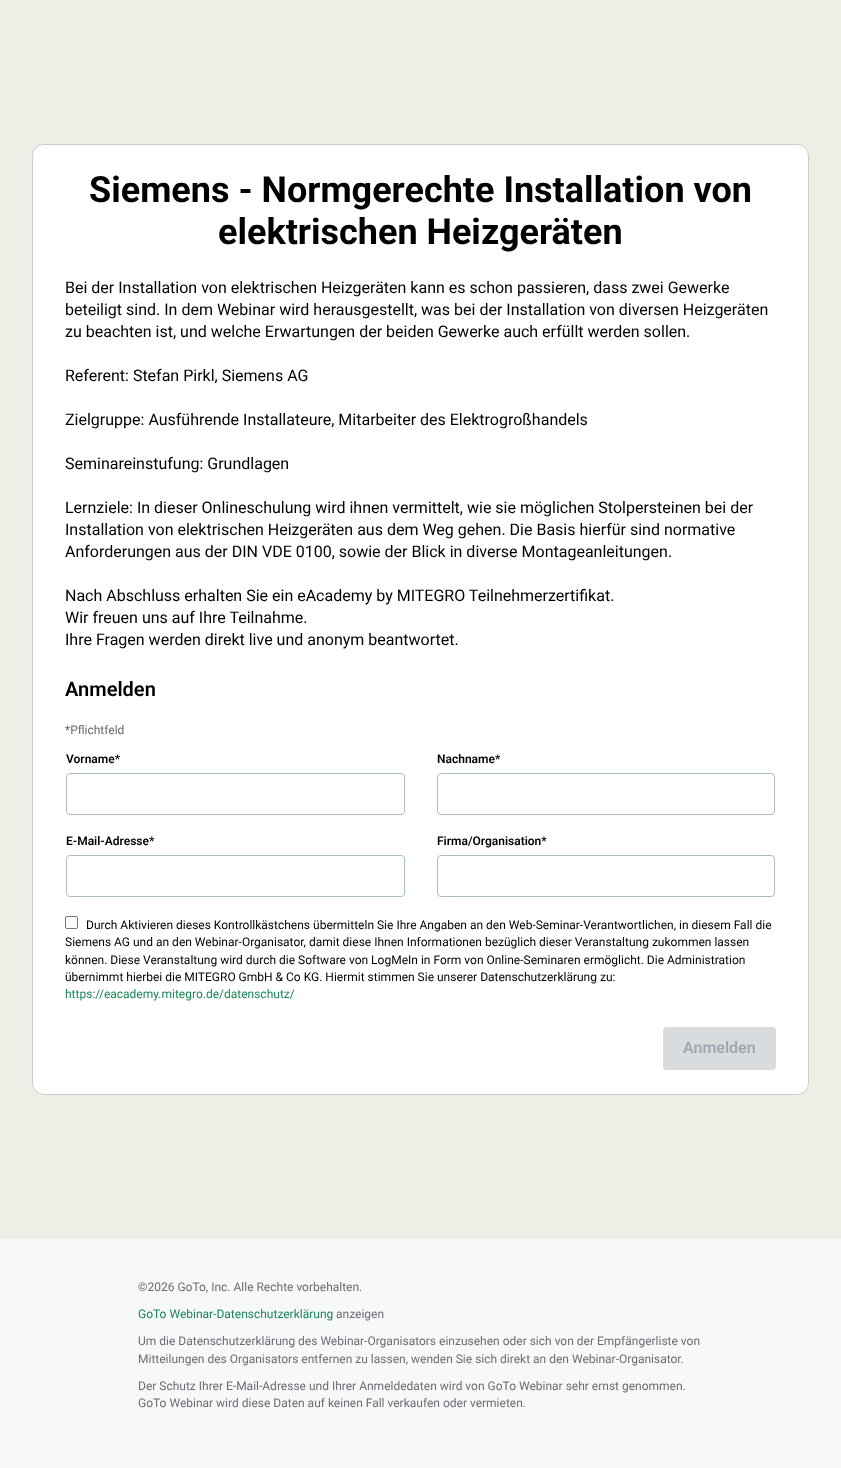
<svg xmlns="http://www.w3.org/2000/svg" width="841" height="1468">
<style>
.a{font:bold 36px Roboto;fill:#000}
.b{font:16px Roboto;fill:#000}
.c{font:600 20px Roboto;fill:#000}
.d{font:12px Roboto;fill:#6b6969}
.e{font:600 12px Roboto;fill:#000}
.f{font:12px Roboto;fill:#000}
.g{font:12px Roboto;fill:#1b8756}
.h{font:600 16px Roboto;fill:#9ea7b3}
.i{font:12px Roboto;fill:#6a6d71}
</style>
<rect width="100%" height="100%" fill="#eeeee7"/>
<rect fill="#fff" stroke="#ccc" x="32.5" y="144.5" width="776" height="950" rx="11.5"/>
<rect fill="none" stroke="#acbcc7" x="66.5" y="773.5" width="338" height="41" rx="3.5"/>
<rect fill="none" stroke="#acbcc7" x="437.5" y="773.5" width="337" height="41" rx="3.5"/>
<rect fill="none" stroke="#acbcc7" x="66.5" y="855.5" width="338" height="41" rx="3.5"/>
<rect fill="none" stroke="#acbcc7" x="437.5" y="855.5" width="337" height="41" rx="3.5"/>
<rect fill="none" stroke="#767676" x="65.5" y="916.5" width="12" height="12" rx="1.5"/>
<rect fill="#d9dcdf" x="663" y="1027" width="113" height="43" rx="4"/>
<path fill="#f7f8fa" d="M0 1239h841v229H0z"/>
<text class="a" x="89" y="202">Siemens - Normgerechte Installation von</text>
<text class="a" x="218" y="244">elektrischen Heizgeräten</text>
<text class="b" x="65" y="293">Bei der Installation von elektrischen Heizgeräten kann es schon passieren, dass zwei Gewerke</text>
<text class="b" x="65" y="315">beteiligt sind. In dem Webinar wird herausgestellt, was bei der Installation von diversen Heizgeräten</text>
<text class="b" x="65" y="337">zu beachten ist, und welche Erwartungen der beiden Gewerke auch erfüllt werden sollen.</text>
<text class="b" x="65" y="381">Referent: Stefan Pirkl, Siemens AG</text>
<text class="b" x="65" y="425">Zielgruppe: Ausführende Installateure, Mitarbeiter des Elektrogroßhandels</text>
<text class="b" x="65" y="469">Seminareinstufung: Grundlagen</text>
<text class="b" x="65" y="513">Lernziele: In dieser Onlineschulung wird ihnen vermittelt, wie sie möglichen Stolpersteinen bei der</text>
<text class="b" x="65" y="535">Installation von elektrischen Heizgeräten aus dem Weg gehen. Die Basis hierfür sind normative</text>
<text class="b" x="65" y="557">Anforderungen aus der DIN VDE 0100, sowie der Blick in diverse Montageanleitungen.</text>
<text class="b" x="65" y="601">Nach Abschluss erhalten Sie ein eAcademy by MITEGRO Teilnehmerzertifikat.</text>
<text class="b" x="65" y="623">Wir freuen uns auf Ihre Teilnahme.</text>
<text class="b" x="65" y="645">Ihre Fragen werden direkt live und anonym beantwortet.</text>
<text class="c" x="65" y="696">Anmelden</text>
<text class="d" x="65" y="734">*Pflichtfeld</text>
<text class="e" x="66" y="763">Vorname*</text>
<text class="e" x="437" y="763">Nachname*</text>
<text class="e" x="66" y="845">E-Mail-Adresse*</text>
<text class="e" x="437" y="845">Firma/Organisation*</text>
<text class="f" x="86" y="929">Durch Aktivieren dieses Kontrollkästchens übermitteln Sie Ihre Angaben an den Web-Seminar-Verantwortlichen, in diesem Fall die</text>
<text class="f" x="65" y="946">Siemens AG und an den Webinar-Organisator, damit diese Ihnen Informationen bezüglich dieser Veranstaltung zukommen lassen</text>
<text class="f" x="65" y="964">können. Diese Veranstaltung wird durch die Software von LogMeIn in Form von Online-Seminaren ermöglicht. Die Administration</text>
<text class="f" x="65" y="981">übernimmt hierbei die MITEGRO GmbH &amp; Co KG. Hiermit stimmen Sie unserer Datenschutzerklärung zu:</text>
<text class="g" x="65" y="998">https://eacademy.mitegro.de/datenschutz/</text>
<text class="h" x="683" y="1053">Anmelden</text>
<text class="i" x="138" y="1291">©2026 GoTo, Inc. Alle Rechte vorbehalten.</text>
<text class="g" x="138" y="1318">GoTo Webinar-Datenschutzerklärung</text>
<text class="i" x="336" y="1318">anzeigen</text>
<text class="i" x="138" y="1345">Um die Datenschutzerklärung des Webinar-Organisators einzusehen oder sich von der Empfängerliste von</text>
<text class="i" x="138" y="1363">Mitteilungen des Organisators entfernen zu lassen, wenden Sie sich direkt an den Webinar-Organisator.</text>
<text class="i" x="138" y="1390">Der Schutz Ihrer E-Mail-Adresse und Ihrer Anmeldedaten wird von GoTo Webinar sehr ernst genommen.</text>
<text class="i" x="138" y="1407">GoTo Webinar wird diese Daten auf keinen Fall verkaufen oder vermieten.</text>
</svg>
